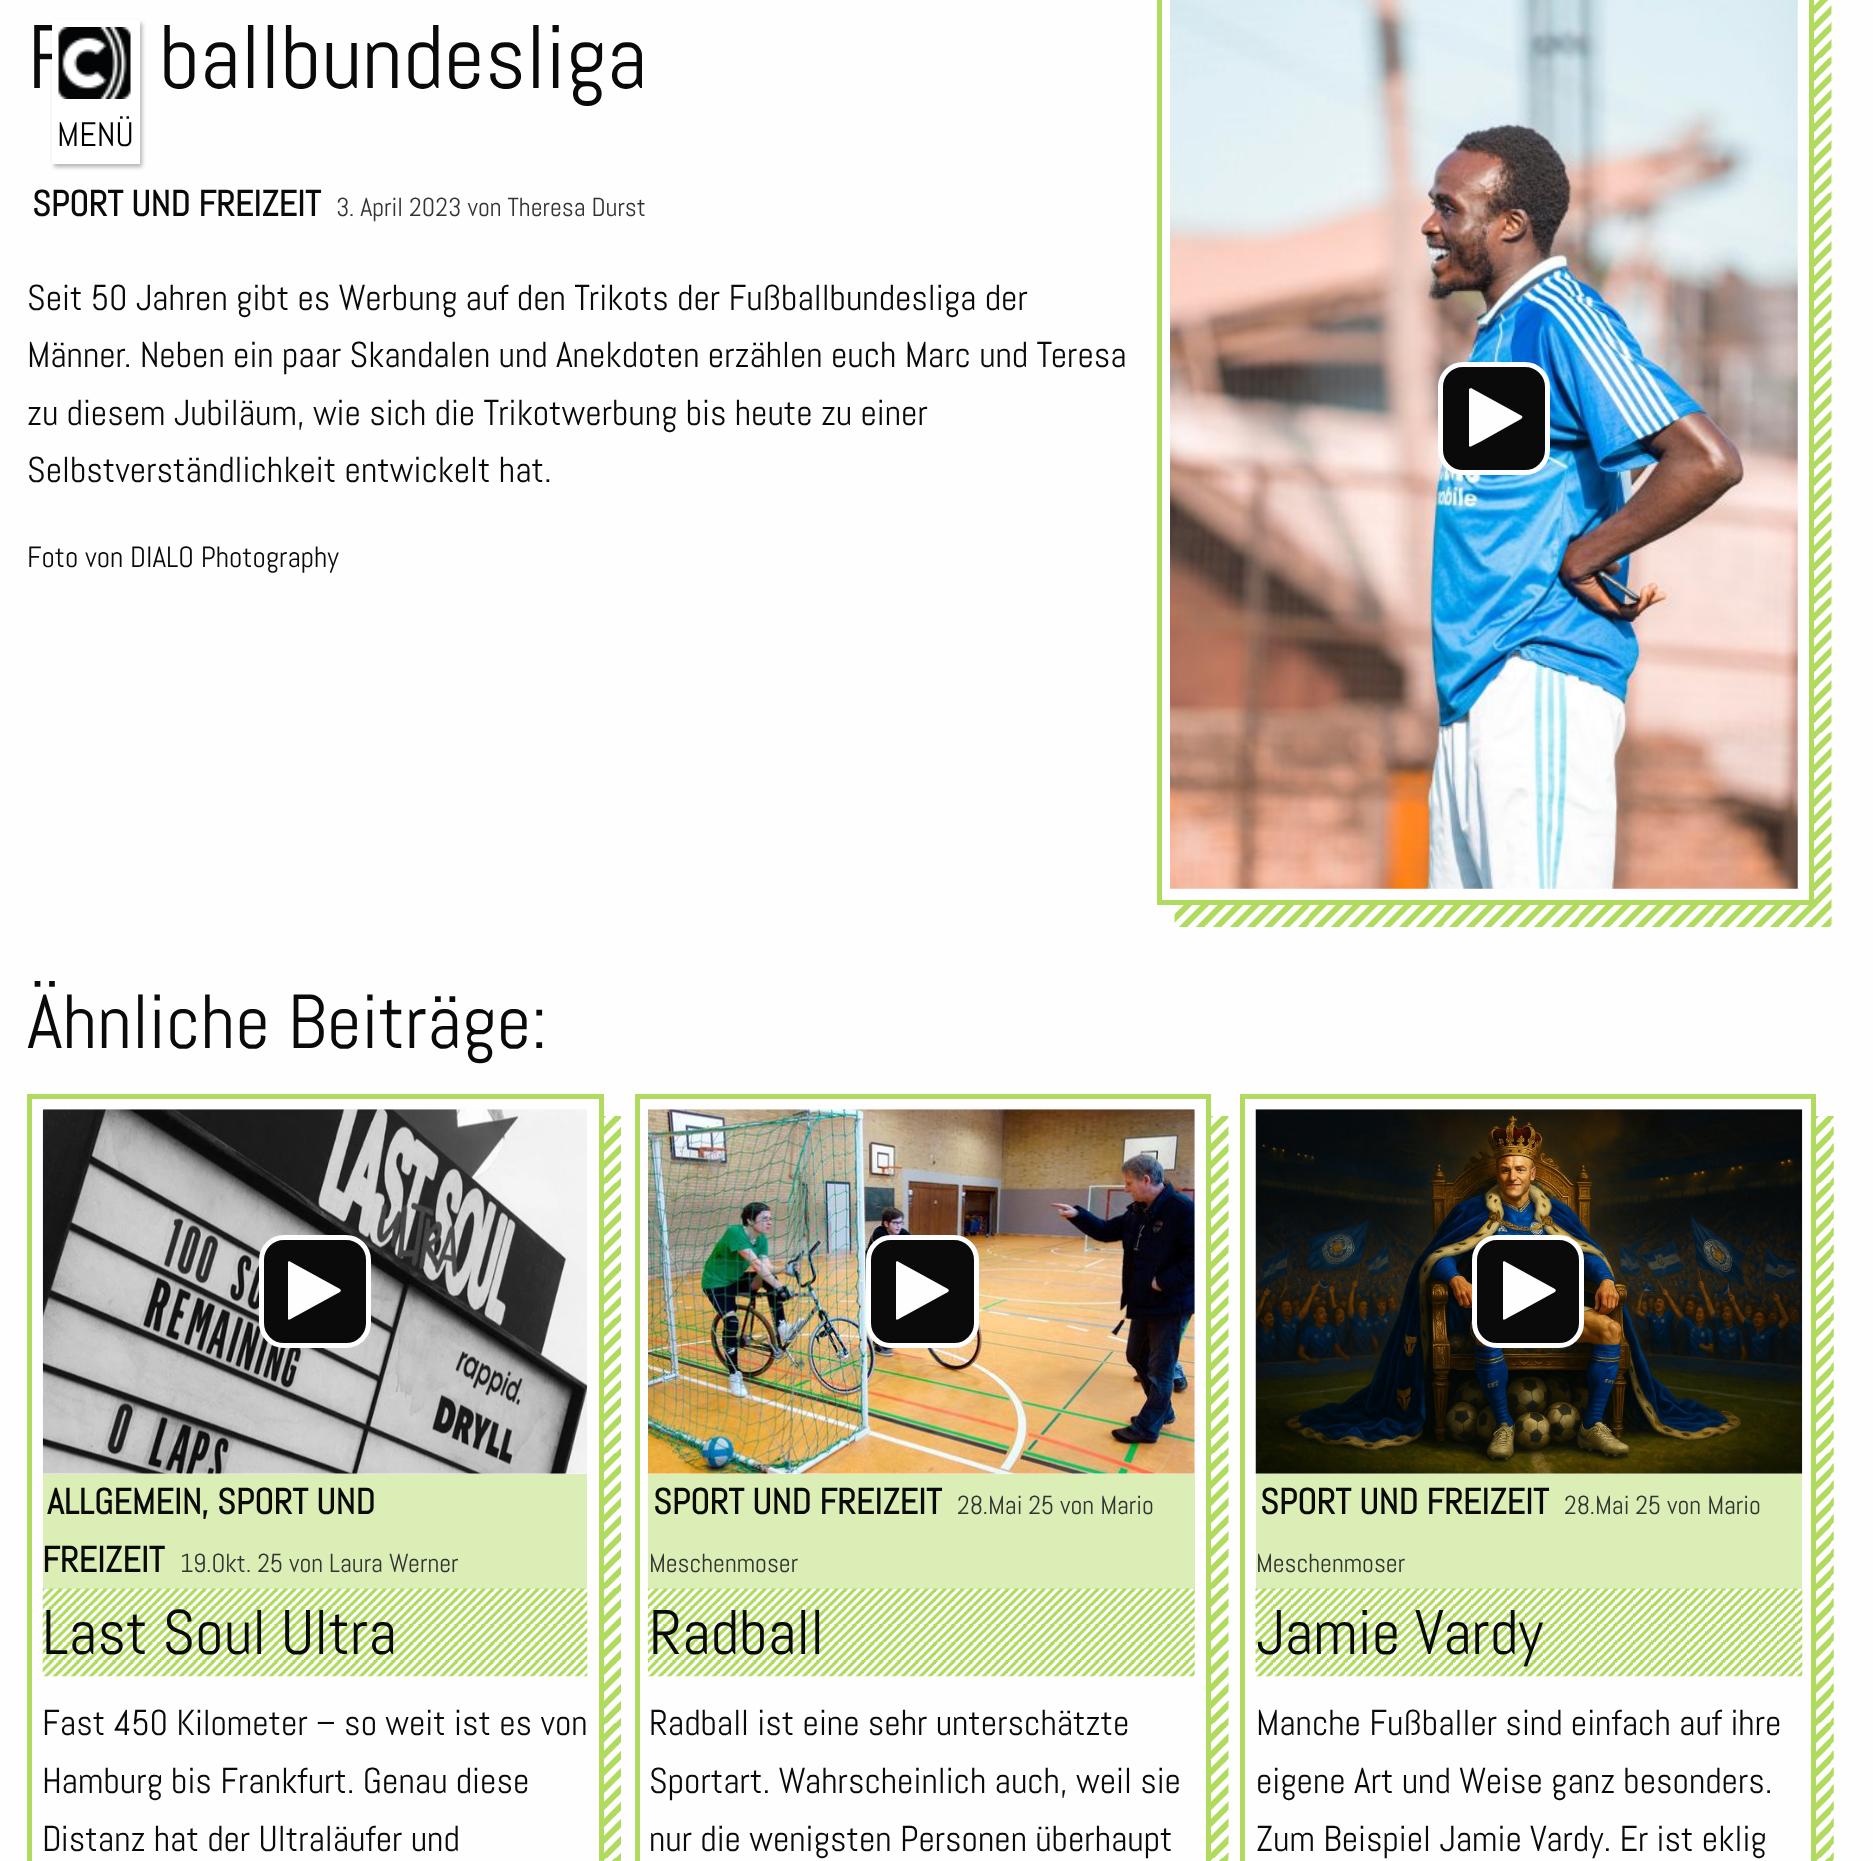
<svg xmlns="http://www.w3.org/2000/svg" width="1873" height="1861">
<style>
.a{font:90px Abel;fill:#0a0a0a}
.b{font:bold 36px Abel;fill:#0a0a0a}
.c{font:26px Abel;fill:#333}
.d{font:36px Abel;fill:#0a0a0a}
.e{font:29.25px Abel;fill:#0a0a0a}
.f{font:76.5px Abel;fill:#0a0a0a}
.g{font:63px Abel;fill:#0a0a0a}
.h{font:34px Abel;fill:#000}
</style>
<rect width="100%" height="100%" fill="#fefefe"/>
<image href="2.png" x="1174" y="0" width="658" height="927"/>
<path fill="#fefefe" d="M1174 0h635v900H1174z"/>
<path fill="none" stroke="#b1db5e" stroke-width="5" d="M1159.5 -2.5h652v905H1159.5z"/>
<image href="1.png" x="1170" y="0" width="628" height="889"/>
<rect fill="#0a0a0a" stroke="#fefefe" stroke-width="5" x="1440.5" y="364.5" width="107" height="108" rx="22.5"/>
<path fill="#fefefe" d="M1521 419l-41 23c-10 5-11 6-11 3v-56l2-1l51 28c1 1 0 2-1 3z"/>
<path fill="#b1db5e" d="M27 1094h576v5H27z"/>
<path fill="#b1db5e" d="M599 1094h5v767H599z"/>
<path fill="#b1db5e" d="M27 1094h5v767H27z"/>
<image href="3.png" x="42" y="1109" width="546" height="365"/>
<rect fill="#0a0a0a" stroke="#fefefe" stroke-width="5" x="261.5" y="1237.5" width="107" height="108" rx="22.5"/>
<path fill="#fefefe" d="M340 1292l-42 23c-9 5-10 6-10 3v-56l1-1l51 28c1 1 1 2 0 3z"/>
<image href="4.png" x="604" y="1116" width="17" height="745"/>
<path fill="#b1db5e" d="M635 1094h576v5H635z"/>
<path fill="#b1db5e" d="M1206 1094h5v767H1206z"/>
<path fill="#b1db5e" d="M635 1094h5v767H635z"/>
<image href="5.png" x="648" y="1109" width="547" height="365"/>
<rect fill="#0a0a0a" stroke="#fefefe" stroke-width="5" x="868.5" y="1237.5" width="108" height="108" rx="22.5"/>
<path fill="#fefefe" d="M948 1292l-42 23c-9 5-10 6-10 3v-56l1-1l51 28c1 1 1 2 0 3z"/>
<image href="6.png" x="1211" y="1116" width="18" height="745"/>
<path fill="#b1db5e" d="M1240 1094h576v5H1240z"/>
<path fill="#b1db5e" d="M1811 1094h5v767H1811z"/>
<path fill="#b1db5e" d="M1240 1094h5v767H1240z"/>
<image href="7.png" x="1255" y="1109" width="548" height="365"/>
<rect fill="#0a0a0a" stroke="#fefefe" stroke-width="5" x="1474.5" y="1237.5" width="107" height="108" rx="22.5"/>
<path fill="#fefefe" d="M1555 1292l-42 23c-9 5-10 6-10 3v-56l1-1l51 28c1 1 1 2 0 3z"/>
<image href="8.png" x="1816" y="1116" width="18" height="745"/>
<path fill="#dbeeb6" d="M43 1474h544v115H43z"/>
<image href="9.png" x="42" y="1588" width="546" height="89"/>
<path fill="#dbeeb6" d="M648 1474h547v115H648z"/>
<image href="10.png" x="648" y="1588" width="547" height="89"/>
<path fill="#dbeeb6" d="M1256 1474h546v115H1256z"/>
<image href="11.png" x="1255" y="1588" width="548" height="89"/>
<path fill="#80808099" filter="blur(2px)" d="M54 23h88v144H54z"/>
<text class="a" x="27" y="88">F</text>
<text class="a" x="159" y="88">ballbundesliga</text>
<text class="b" x="32" y="216">SPORT UND FREIZEIT</text>
<text class="c" x="336" y="216">3. April 2023 von Theresa Durst</text>
<text class="d" x="27" y="310">Seit 50 Jahren gibt es Werbung auf den Trikots der Fußballbundesliga der</text>
<text class="d" x="27" y="367">Männer. Neben ein paar Skandalen und Anekdoten erzählen euch Marc und Teresa</text>
<text class="d" x="27" y="425">zu diesem Jubiläum, wie sich die Trikotwerbung bis heute zu einer</text>
<text class="d" x="27" y="482">Selbstverständlichkeit entwickelt hat.</text>
<text class="e" x="27" y="567">Foto von DIALO Photography</text>
<text class="f" x="27" y="1048">Ähnliche Beiträge:</text>
<text class="b" x="47" y="1514">ALLGEMEIN</text>
<text class="b" x="201" y="1514">,</text>
<text class="b" x="217" y="1514">SPORT UND</text>
<text class="b" x="42" y="1572">FREIZEIT</text>
<text class="c" x="180" y="1572">19.Okt. 25 von Laura Werner</text>
<text class="g" x="42" y="1654">Last Soul Ultra</text>
<text class="d" x="42" y="1735">Fast 450 Kilometer – so weit ist es von</text>
<text class="d" x="42" y="1793">Hamburg bis Frankfurt. Genau diese</text>
<text class="d" x="42" y="1851">Distanz hat der Ultraläufer und</text>
<text class="b" x="653" y="1514">SPORT UND FREIZEIT</text>
<text class="c" x="957" y="1514">28.Mai 25 von Mario</text>
<text class="c" x="649" y="1572">Meschenmoser</text>
<text class="g" x="649" y="1654">Radball</text>
<text class="d" x="649" y="1735">Radball ist eine sehr unterschätzte</text>
<text class="d" x="649" y="1793">Sportart. Wahrscheinlich auch, weil sie</text>
<text class="d" x="649" y="1851">nur die wenigsten Personen überhaupt</text>
<text class="b" x="1260" y="1514">SPORT UND FREIZEIT</text>
<text class="c" x="1564" y="1514">28.Mai 25 von Mario</text>
<text class="c" x="1256" y="1572">Meschenmoser</text>
<text class="g" x="1256" y="1654">Jamie Vardy</text>
<text class="d" x="1256" y="1735">Manche Fußballer sind einfach auf ihre</text>
<text class="d" x="1256" y="1793">eigene Art und Weise ganz besonders.</text>
<text class="d" x="1256" y="1851">Zum Beispiel Jamie Vardy. Er ist eklig</text>
<path fill="#fff" d="M52 20h88v144H52z"/>
<image href="12.png" x="58" y="27" width="73" height="72"/>
<text class="h" x="57" y="146">MENÜ</text>
</svg>
